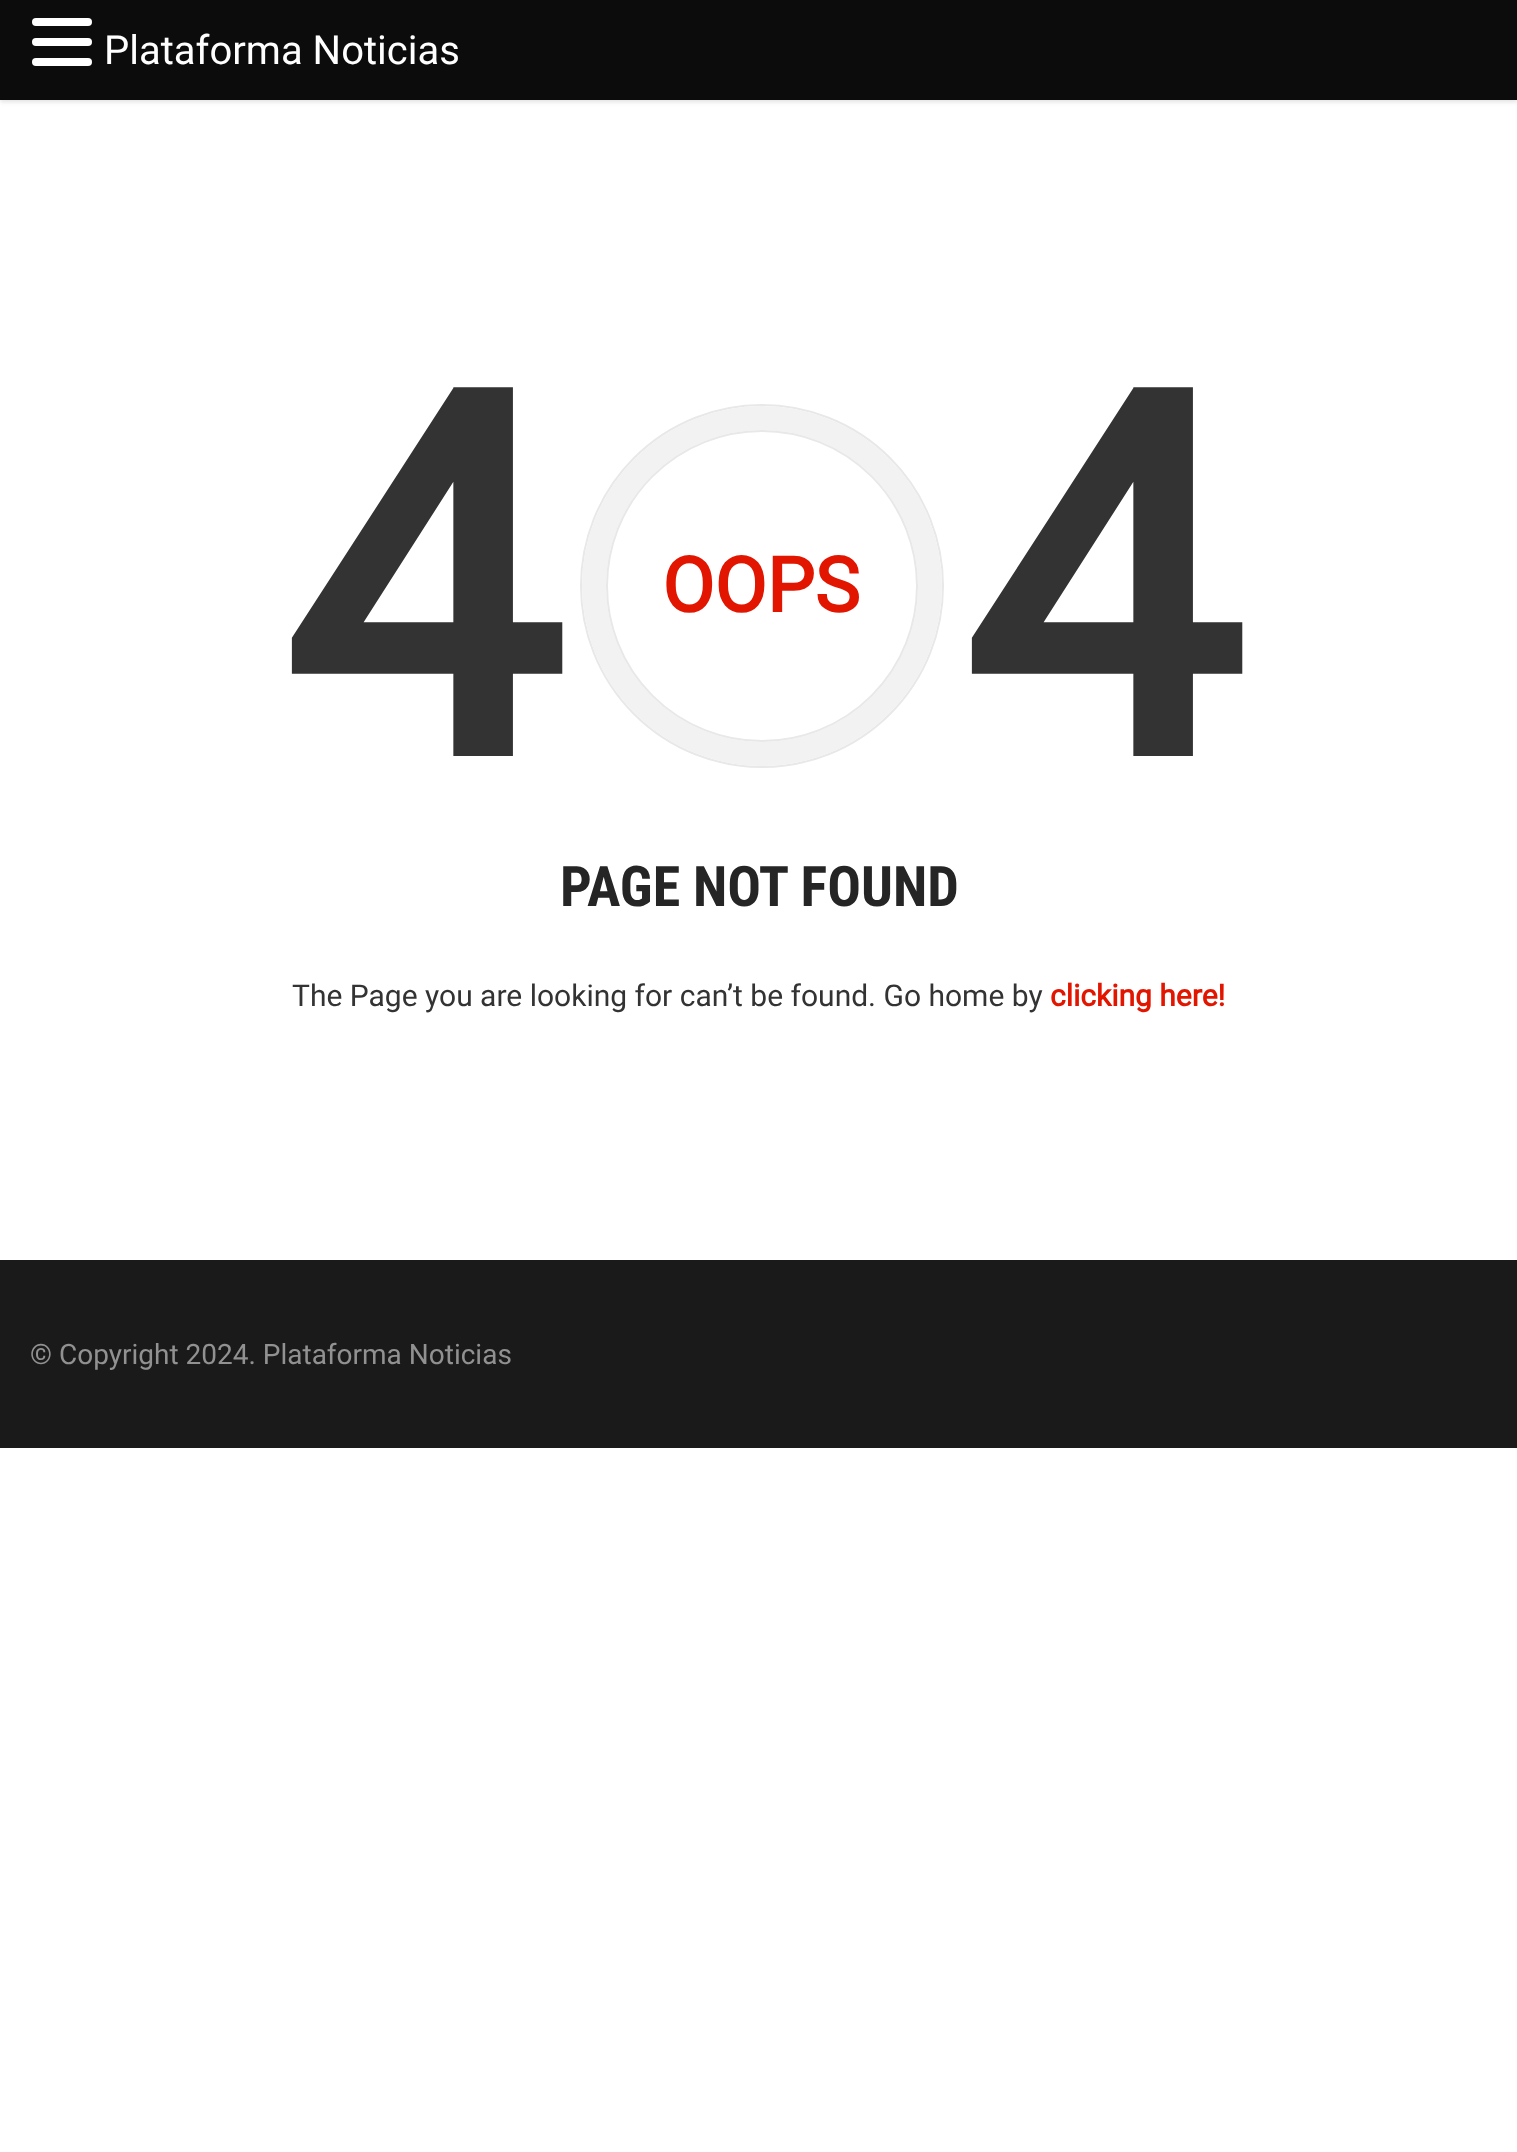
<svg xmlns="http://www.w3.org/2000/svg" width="1517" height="2152">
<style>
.a{font:40px Roboto;fill:#fff}
.b{font:bold 498px Roboto;fill:#333}
.c{font:bold 76px Roboto;fill:#e21600}
.d{font:bold 56px Roboto Condensed;fill:#252525}
.e{font:30px Roboto;fill:#333}
.f{font:bold 30px Roboto;fill:#e21600}
.g{font:28px Roboto;fill:#929191}
</style>
<rect width="100%" height="100%" fill="#fff"/>
<path fill="#6c6c6c33" filter="blur(2px)" d="M0 2h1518v100H0z"/>
<path fill="#0c0c0c" d="M0 0h1517v100H0z"/>
<rect fill="#fff" x="32" y="18" width="60" height="8" rx="4"/>
<rect fill="#fff" x="32" y="38" width="60" height="8" rx="4"/>
<rect fill="#fff" x="32" y="58" width="60" height="8" rx="4"/>
<circle fill="none" stroke="#e8e8e8" stroke-width="2" cx="762" cy="586" r="181"/>
<circle fill="none" stroke="#f2f2f2" stroke-width="24" cx="762" cy="586" r="168"/>
<circle fill="none" stroke="#e8e8e8" stroke-width="2" cx="762" cy="586" r="155"/>
<path fill="#1a1a1a" d="M0 1260h1517v188H0z"/>
<text class="a" x="104" y="64">Plataforma Noticias</text>
<text class="b" x="279" y="756">4</text>
<text class="c" x="662" y="612">OOPS</text>
<text class="b" x="959" y="756">4</text>
<text class="d" x="560" y="906">PAGE NOT FOUND</text>
<text class="e" x="292" y="1006">The Page you are looking for can’t be found. Go home by</text>
<text class="f" x="1050" y="1006">clicking here!</text>
<text class="g" x="30" y="1364">© Copyright 2024. Plataforma Noticias</text>
</svg>
